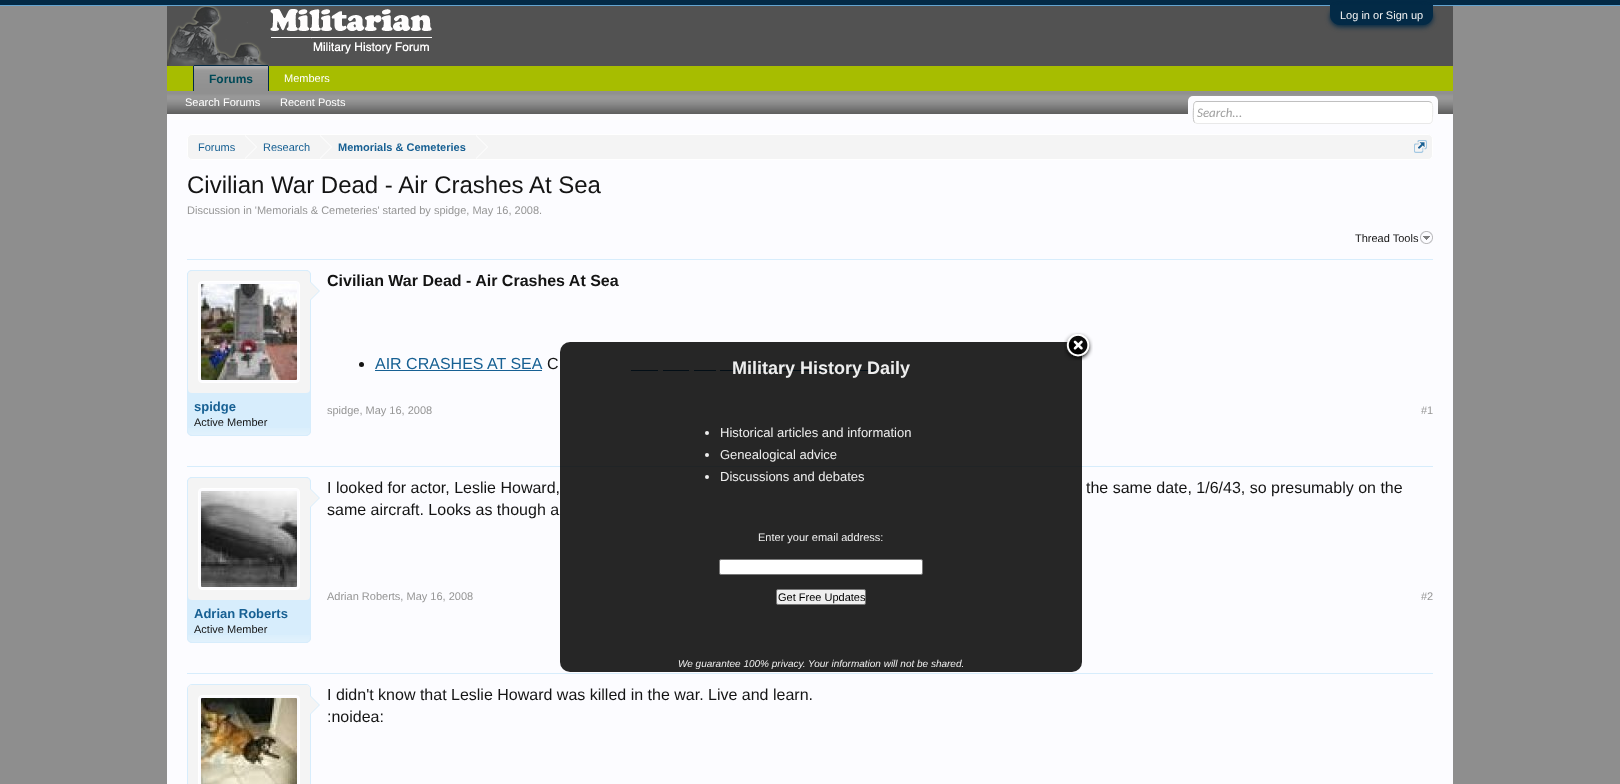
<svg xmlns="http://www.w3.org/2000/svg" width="1620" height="784">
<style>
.a{font:11px Liberation Sans;fill:#f4f4f4}
.b{font:bold 12px Liberation Sans;fill:#004957}
.c{font:11px Liberation Sans;fill:#fff}
.d{font:italic 13px Carlito;fill:#a0a0a0}
.e{font:11px Liberation Sans;fill:#176093}
.f{font:bold 11px Liberation Sans;fill:#176093}
.g{font:24px Liberation Sans;fill:#141414}
.h{font:11px Liberation Sans;fill:#969696}
.i{font:11px Liberation Sans;fill:#141414}
.j{font:bold 13px Liberation Sans;fill:#176093}
.k{font:bold 16px Liberation Sans;fill:#141414}
.l{font:16px Liberation Sans;fill:#176093}
.m{font:16px Liberation Sans;fill:#141414}
.n{font:bold 18px Liberation Sans;fill:#eee}
.o{font:13px Liberation Sans;fill:#eee}
.p{font:11px Liberation Sans;fill:#eee}
.q{font:11px Liberation Sans;fill:#000}
.r{font:italic 10px Liberation Sans;fill:#eee}
</style>
<rect width="100%" height="100%" fill="#8e8e8e"/>
<path fill="#032a46" d="M0 0h1620v5H0z"/>
<path fill="#65a5d1" d="M0 5h1620v1H0z"/>
<path fill="#525252" d="M167 6h1286v60H167z"/>
<rect fill="#032a46" filter="blur(2.5px)" x="1330" y="7" width="103" height="20" rx="10"/>
<path fill="#032a46" d="M1330 5h103v10c0 5.5-4.5 10-10 10h-83c-5.5 0-10-4.5-10-10z"/>
<image href="1.png" x="167" y="6" width="265" height="60"/>
<path fill="#525252" d="M167 91h1286v23H167z"/>
<path fill="#a7bd00" d="M167 66h1286v25H167z"/>
<path fill="#525252" d="M195 65h72c1 0 2 1 2 2v24h-76v-24c0-1 1-2 2-2z"/>
<image href="2.png" x="194" y="66" width="74" height="25"/>
<path fill="#032a46" d="M194 65h74v1H194z"/>
<path fill="#032a46" d="M268 66h1v25H268z"/>
<path fill="#032a46" d="M193 66h1v25H193z"/>
<image href="3.png" x="167" y="91" width="1286" height="23"/>
<path fill="#fcfcff" d="M167 114h1286v670H167z"/>
<rect fill="#fcfcff" x="1188" y="96" width="250" height="28" rx="5"/>
<rect fill="#fff" x="1193" y="101" width="240" height="23" rx="4"/>
<path fill="none" stroke="#e9e9e9" d="M1431.5 102.5c2 2.5 1 12 1 15c0 2.5 0 6-3.5 6h-232l-2.5-1"/>
<path fill="none" stroke="#c0c0c0" d="M1194.5 122.5c-2-2.5-1-12-1-15c0-2.5 0-6 3.5-6h232l2.5 1"/>
<rect fill="#f4f4f4" stroke="#fff" x="187.5" y="134.5" width="1245" height="25" rx="4.5"/>
<path fill="#fff" d="M245 159v-24l12 12z"/>
<path fill="#f4f4f4" d="M244 159v-24l12 12z"/>
<path fill="#fff" d="M320 159v-24l12 12z"/>
<path fill="#f4f4f4" d="M319 159v-24l12 12z"/>
<path fill="#fff" d="M476 159v-24l12 12z"/>
<path fill="#f4f4f4" d="M475 159v-24l12 12z"/>
<image href="4.png" x="1414" y="140" width="13" height="13"/>
<image href="5.png" x="1420" y="231" width="13" height="13"/>
<path fill="#d7edfc" d="M187 259h1246v1H187z"/>
<rect fill="#d7edfc" x="187" y="270" width="124" height="166" rx="5"/>
<image href="6.png" x="187" y="428" width="124" height="7"/>
<rect fill="none" stroke="#d7edfc" x="187.5" y="270.5" width="123" height="165" rx="4.5"/>
<rect fill="#f4f4f4" x="188" y="271" width="122" height="122" rx="4"/>
<rect fill="#fcfcff" stroke="#fff" x="198.5" y="281.5" width="101" height="101" rx="3.5"/>
<image href="7.png" x="201" y="284" width="96" height="96"/>
<path fill="#d7edfc" d="M310 301v-20l10 10z"/>
<path fill="#f4f4f4" d="M309 301v-20l10 10z"/>
<circle fill="#141414" cx="361.5" cy="364.5" r="2.5"/>
<path fill="#176093" d="M375 370h167v1H375z"/>
<path fill="#176093" d="M631 370h27v1H631z"/>
<path fill="#176093" d="M663 370h26v1H663z"/>
<path fill="#176093" d="M694 370h22v1H694z"/>
<path fill="#176093" d="M720 370h23v1H720z"/>
<path fill="#176093" d="M747 370h31v1H747z"/>
<path fill="#176093" d="M783 370h27v1H783z"/>
<path fill="#176093" d="M815 370h26v1H815z"/>
<path fill="#176093" d="M846 370h30v1H846z"/>
<path fill="#d7edfc" d="M187 466h1246v1H187z"/>
<rect fill="#d7edfc" x="187" y="477" width="124" height="166" rx="5"/>
<image href="6.png" x="187" y="635" width="124" height="7"/>
<rect fill="none" stroke="#d7edfc" x="187.5" y="477.5" width="123" height="165" rx="4.5"/>
<rect fill="#f4f4f4" x="188" y="478" width="122" height="122" rx="4"/>
<rect fill="#fcfcff" stroke="#fff" x="198.5" y="488.5" width="101" height="101" rx="3.5"/>
<image href="8.png" x="201" y="491" width="96" height="96"/>
<path fill="#d7edfc" d="M310 508v-20l10 10z"/>
<path fill="#f4f4f4" d="M309 508v-20l10 10z"/>
<path fill="#d7edfc" d="M187 673h1246v1H187z"/>
<rect fill="none" stroke="#d7edfc" x="187.5" y="684.5" width="123" height="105" rx="4.5"/>
<rect fill="#f4f4f4" x="188" y="685" width="122" height="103" rx="4"/>
<rect fill="#fcfcff" stroke="#fff" x="198.5" y="695.5" width="101" height="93" rx="3.5"/>
<image href="9.png" x="201" y="698" width="96" height="86"/>
<path fill="#d7edfc" d="M310 715v-20l10 10z"/>
<path fill="#f4f4f4" d="M309 715v-20l10 10z"/>
<rect fill="#000000d9" x="560" y="342" width="522" height="330" rx="10"/>
<image href="10.png" x="1064" y="332" width="29" height="29"/>
<circle fill="#eee" cx="707" cy="433" r="2"/>
<circle fill="#eee" cx="707" cy="455" r="2"/>
<circle fill="#eee" cx="707" cy="477" r="2"/>
<rect fill="#fff" stroke="#767676" x="719.5" y="559.5" width="203" height="15" rx="1.5"/>
<rect fill="#efefef" stroke="#767676" x="776.5" y="589.5" width="89" height="15" rx="1.5"/>
<text class="a" x="1340" y="19">Log in or Sign up</text>
<text class="b" x="209" y="83">Forums</text>
<text class="c" x="185" y="106">Search Forums</text>
<text class="c" x="280" y="106">Recent Posts</text>
<text class="c" x="284" y="82">Members</text>
<text class="d" x="1197" y="117">Search...</text>
<text class="e" x="198" y="151">Forums</text>
<text class="e" x="263" y="151">Research</text>
<text class="f" x="338" y="151">Memorials &amp; Cemeteries</text>
<text class="g" x="187" y="193">Civilian War Dead - Air Crashes At Sea</text>
<text class="h" x="187" y="214">Discussion in 'Memorials &amp; Cemeteries' started by spidge, May 16, 2008.</text>
<text class="i" x="1355" y="242">Thread Tools</text>
<text class="j" x="194" y="411">spidge</text>
<text class="i" x="194" y="426">Active Member</text>
<text class="k" x="327" y="286">Civilian War Dead - Air Crashes At Sea</text>
<text class="l" x="375" y="369">AIR CRASHES AT SEA</text>
<text class="m" x="547" y="369">C</text>
<text class="h" x="327" y="414">spidge, May 16, 2008</text>
<text class="h" x="1421" y="414">#1</text>
<text class="m" x="327" y="493">I looked for actor, Leslie Howard,</text>
<text class="m" x="1086" y="493">the same date, 1/6/43, so presumably on the</text>
<text class="m" x="327" y="515">same aircraft. Looks as though a</text>
<text class="h" x="327" y="600">Adrian Roberts, May 16, 2008</text>
<text class="h" x="1421" y="600">#2</text>
<text class="j" x="194" y="618">Adrian Roberts</text>
<text class="i" x="194" y="633">Active Member</text>
<text class="m" x="327" y="700">I didn't know that Leslie Howard was killed in the war. Live and learn.</text>
<text class="m" x="327" y="722">:noidea:</text>
<text class="n" x="732" y="374">Military History Daily</text>
<text class="o" x="720" y="437">Historical articles and information</text>
<text class="o" x="720" y="459">Genealogical advice</text>
<text class="o" x="720" y="481">Discussions and debates</text>
<text class="p" x="758" y="541">Enter your email address:</text>
<text class="q" x="778" y="601">Get Free Updates</text>
<text class="r" x="678" y="667">We guarantee 100% privacy. Your information will not be shared.</text>
</svg>
